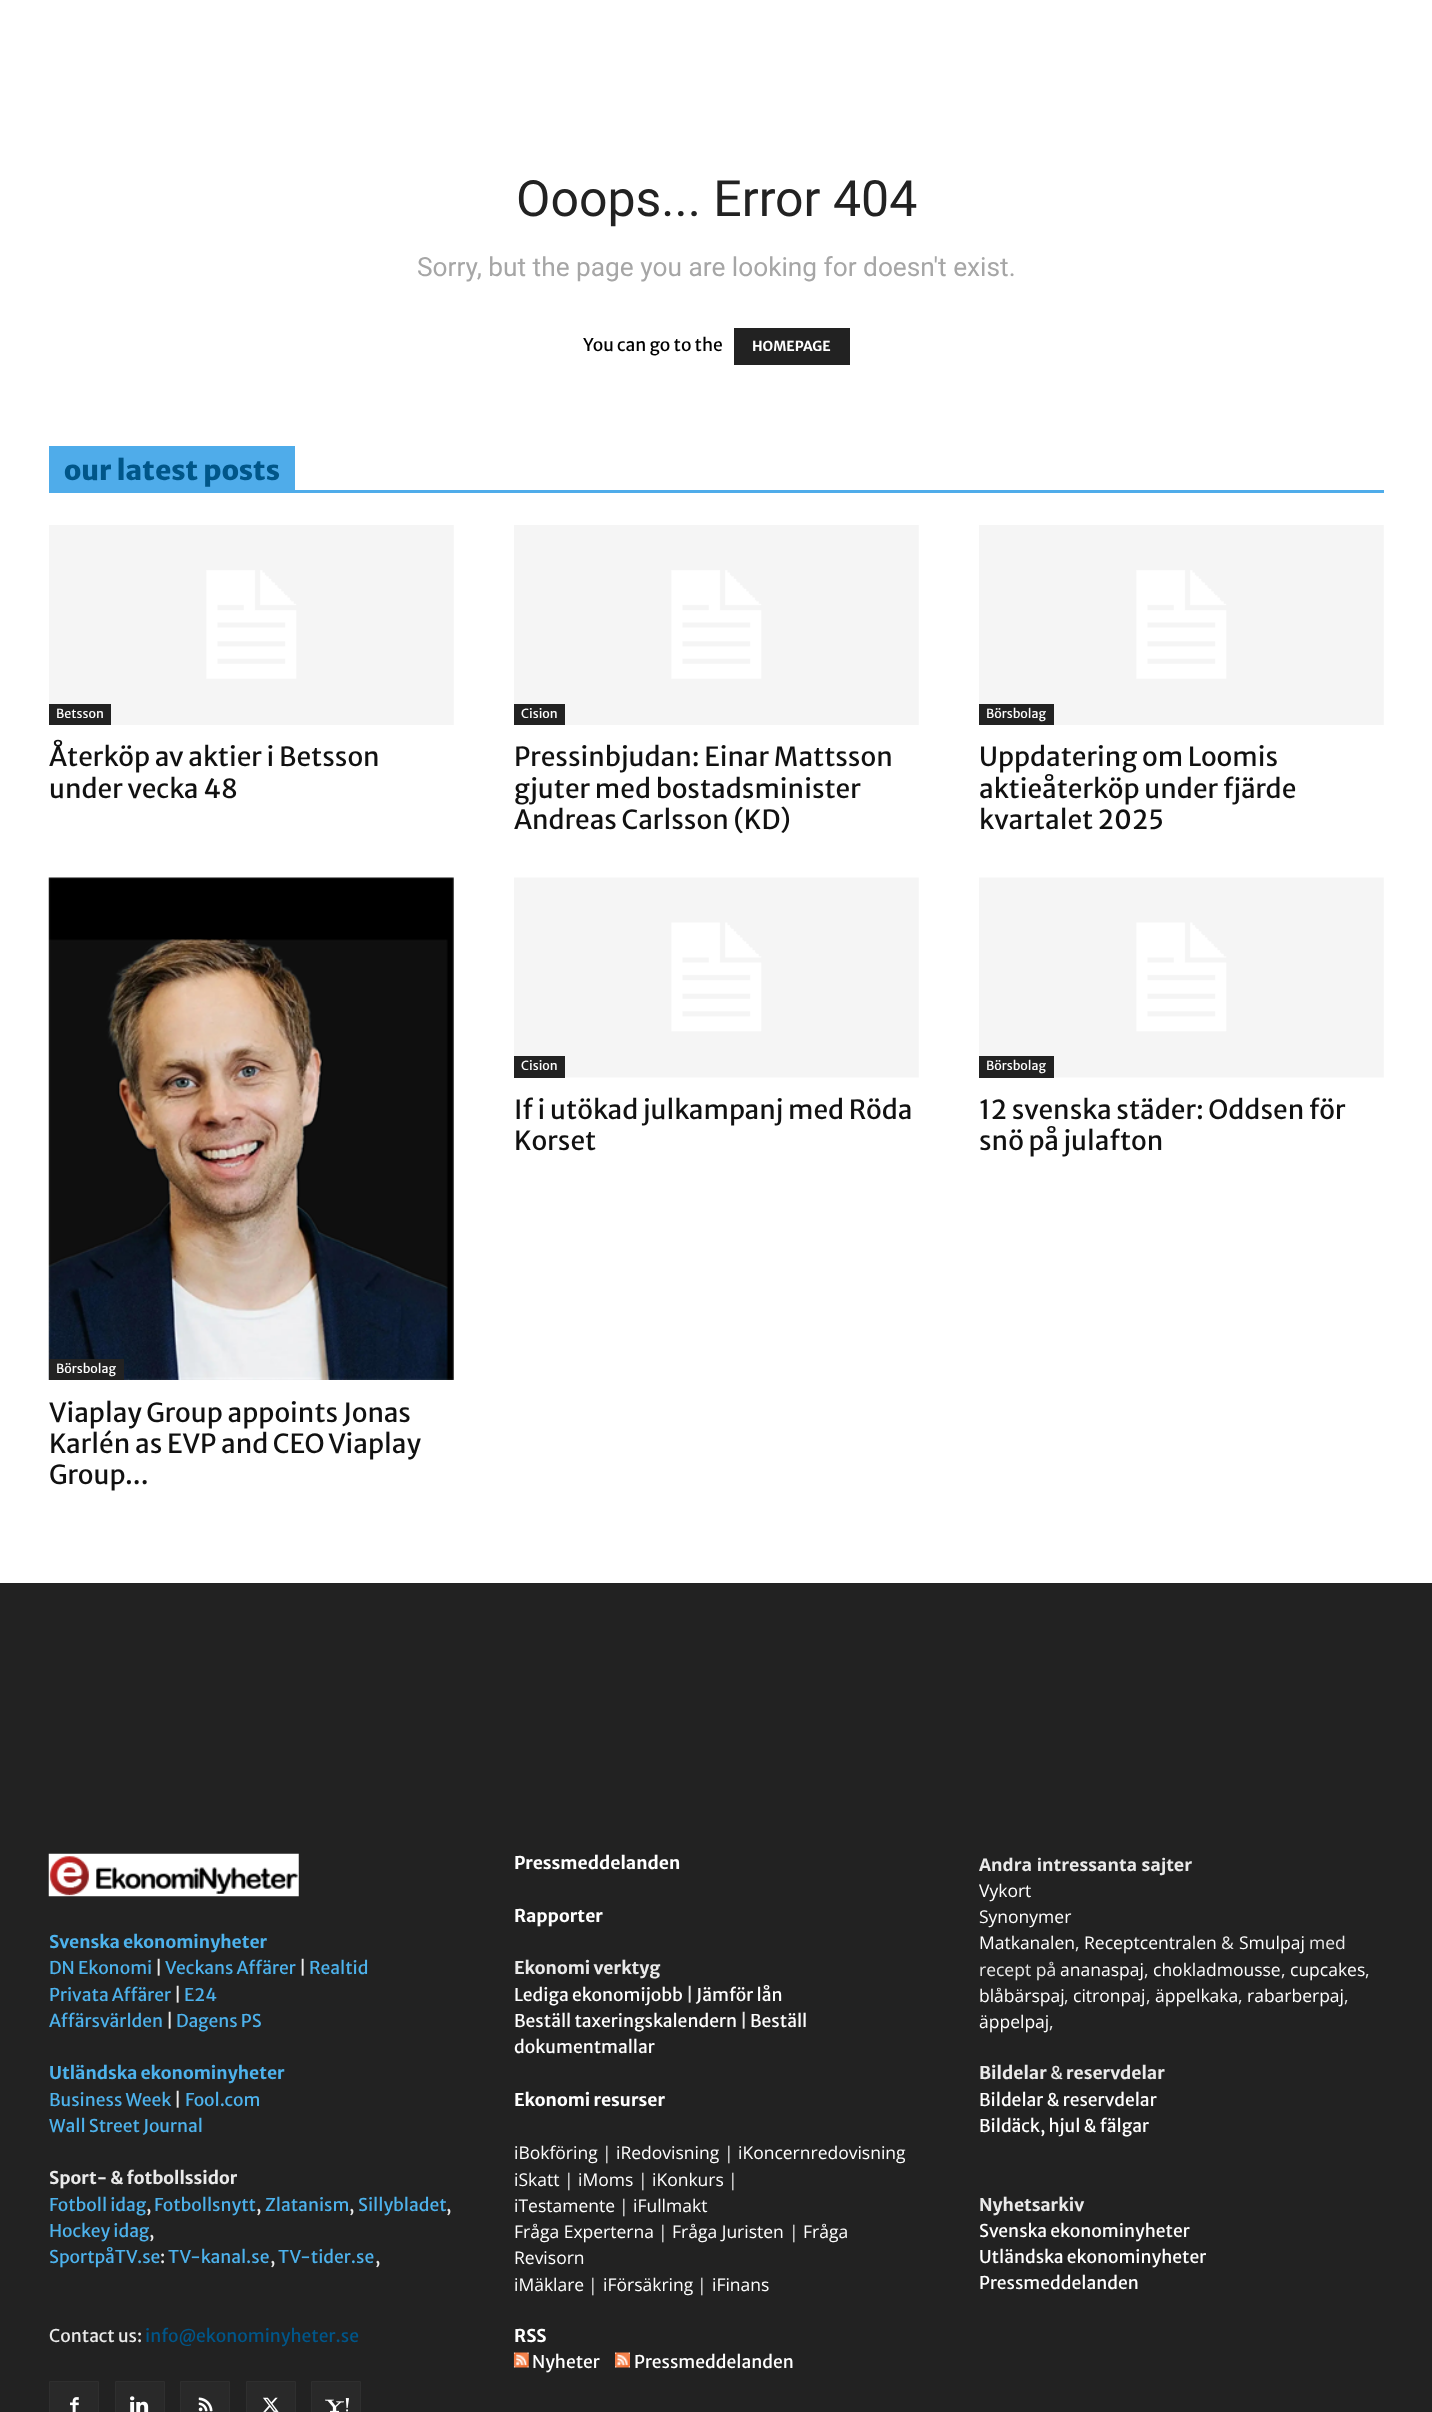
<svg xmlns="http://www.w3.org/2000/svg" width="1432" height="2412">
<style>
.a{font:50px Roboto;fill:#222}
.b{font:26.25px Roboto;fill:#a6a6a6}
.c{font:17.5px Merriweather Sans;fill:#000}
.d{font:bold 13.75px Merriweather Sans;fill:#fff}
.e{font:800 27.5px Merriweather Sans;fill:#005689}
.f{font:12.5px Merriweather Sans;fill:#fff}
.g{font:26.25px Merriweather Sans;fill:#111}
.h{font:bold 17.5px Merriweather Sans;fill:#4db2ec}
.i{font:17.5px Merriweather Sans;fill:#4db2ec}
.j{font:17.5px Merriweather Sans;fill:#eaeaea}
.k{font:bold 17.5px Merriweather Sans;fill:#eaeaea}
.l{font:17.5px Merriweather Sans;fill:#005689}
.m{font:bold 17.5px Merriweather Sans;fill:#fff}
.n{font:17.5px Merriweather Sans;fill:#fff}
.o{font:17.5px Open Sans;fill:#fff}
.p{font:17.5px Open Sans;fill:#eaeaea}
.q{font:bold 17.5px Open Sans;fill:#eaeaea}
</style>
<rect width="100%" height="100%" fill="#fff"/>
<path fill="#222" d="M734 328h116v37H734z"/>
<path fill="#4facea" d="M49 490h1335v3H49z"/>
<path fill="#4facea" d="M49 446h246v44H49z"/>
<image href="1.png" x="49" y="525" width="405" height="200"/>
<path fill="#222" d="M49 704h62v21H49z"/>
<image href="2.png" x="514" y="525" width="405" height="200"/>
<path fill="#222" d="M514 704h51v21H514z"/>
<image href="2.png" x="979" y="525" width="405" height="200"/>
<path fill="#222" d="M979 704h75v21H979z"/>
<image href="3.png" x="514" y="877" width="405" height="201"/>
<path fill="#222" d="M514 1056h51v22H514z"/>
<image href="3.png" x="979" y="877" width="405" height="201"/>
<path fill="#222" d="M979 1056h75v22H979z"/>
<image href="4.png" x="48" y="877" width="406" height="503"/>
<path fill="#222" d="M49 1359h75v21H49z"/>
<path fill="#222" d="M0 1583h1432v829H0z"/>
<image href="5.png" x="48" y="1853" width="251" height="44"/>
<path fill="#292929" d="M50 2382h48v30H50z"/>
<image href="6.png" x="70" y="2397" width="9" height="15"/>
<path fill="none" stroke="#2f2f2f" d="M49.5 2381.5h49v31H49.5z"/>
<path fill="#292929" d="M116 2382h48v30H116z"/>
<image href="7.png" x="130" y="2396" width="19" height="16"/>
<path fill="none" stroke="#2f2f2f" d="M115.5 2381.5h49v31H115.5z"/>
<path fill="#292929" d="M181 2382h48v30H181z"/>
<image href="8.png" x="198" y="2397" width="15" height="15"/>
<path fill="none" stroke="#2f2f2f" d="M180.5 2381.5h49v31H180.5z"/>
<path fill="#292929" d="M247 2382h48v30H247z"/>
<image href="9.png" x="263" y="2397" width="16" height="15"/>
<path fill="none" stroke="#2f2f2f" d="M246.5 2381.5h49v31H246.5z"/>
<path fill="#292929" d="M312 2382h48v30H312z"/>
<image href="10.png" x="325" y="2398" width="24" height="14"/>
<path fill="none" stroke="#2f2f2f" d="M311.5 2381.5h49v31H311.5z"/>
<image href="11.png" x="513" y="2352" width="16" height="16"/>
<image href="12.png" x="615" y="2352" width="15" height="16"/>
<text class="a" x="516" y="216">Ooops... Error 404</text>
<text class="b" x="417" y="276">Sorry, but the page you are looking for doesn't exist.</text>
<text class="c" x="583" y="351">You can go to the</text>
<text class="d" x="752" y="351">HOMEPAGE</text>
<text class="e" x="64" y="480">our latest posts</text>
<text class="f" x="56" y="718">Betsson</text>
<text class="g" x="49" y="766">Återköp av aktier i Betsson</text>
<text class="g" x="49" y="798">under vecka 48</text>
<text class="f" x="521" y="718">Cision</text>
<text class="g" x="514" y="766">Pressinbjudan: Einar Mattsson</text>
<text class="g" x="514" y="798">gjuter med bostadsminister</text>
<text class="g" x="514" y="829">Andreas Carlsson (KD)</text>
<text class="f" x="986" y="718">Börsbolag</text>
<text class="g" x="979" y="766">Uppdatering om Loomis</text>
<text class="g" x="979" y="798">aktieåterköp under fjärde</text>
<text class="g" x="979" y="829">kvartalet 2025</text>
<text class="f" x="521" y="1070">Cision</text>
<text class="g" x="514" y="1119">If i utökad julkampanj med Röda</text>
<text class="g" x="514" y="1150">Korset</text>
<text class="f" x="986" y="1070">Börsbolag</text>
<text class="g" x="979" y="1119">12 svenska städer: Oddsen för</text>
<text class="g" x="979" y="1150">snö på julafton</text>
<text class="f" x="56" y="1373">Börsbolag</text>
<text class="g" x="49" y="1422">Viaplay Group appoints Jonas</text>
<text class="g" x="49" y="1453">Karlén as EVP and CEO Viaplay</text>
<text class="g" x="49" y="1484">Group...</text>
<text class="h" x="49" y="1948">Svenska ekonominyheter</text>
<text class="i" x="49" y="1974">DN Ekonomi</text>
<text class="j" x="155" y="1974">|</text>
<text class="i" x="165" y="1974">Veckans Affärer</text>
<text class="j" x="299" y="1974">|</text>
<text class="i" x="309" y="1974">Realtid</text>
<text class="i" x="49" y="2001">Privata Affärer</text>
<text class="j" x="174" y="2001">|</text>
<text class="i" x="184" y="2001">E24</text>
<text class="i" x="49" y="2027">Affärsvärlden</text>
<text class="j" x="166" y="2027">|</text>
<text class="i" x="176" y="2027">Dagens PS</text>
<text class="h" x="49" y="2079">Utländska ekonominyheter</text>
<text class="i" x="49" y="2106">Business Week</text>
<text class="j" x="174" y="2106">|</text>
<text class="i" x="185" y="2106">Fool.com</text>
<text class="i" x="49" y="2132">Wall Street Journal</text>
<text class="k" x="49" y="2184">Sport- &amp; fotbollssidor</text>
<text class="i" x="49" y="2211">Fotboll idag</text>
<text class="j" x="146" y="2211">,</text>
<text class="i" x="154" y="2211">Fotbollsnytt</text>
<text class="j" x="256" y="2211">,</text>
<text class="i" x="265" y="2211">Zlatanism</text>
<text class="j" x="349" y="2211">,</text>
<text class="i" x="358" y="2211">Sillybladet</text>
<text class="j" x="446" y="2211">,</text>
<text class="i" x="49" y="2237">Hockey idag</text>
<text class="j" x="149" y="2237">,</text>
<text class="i" x="49" y="2263">SportpåTV.se</text>
<text class="j" x="160" y="2263">:</text>
<text class="i" x="168" y="2263">TV-kanal.se</text>
<text class="j" x="270" y="2263">,</text>
<text class="i" x="278" y="2263">TV-tider.se</text>
<text class="j" x="375" y="2263">,</text>
<text class="j" x="49" y="2342">Contact us:</text>
<text class="l" x="145" y="2342">info@ekonominyheter.se</text>
<text class="m" x="514" y="1869">Pressmeddelanden</text>
<text class="m" x="514" y="1922">Rapporter</text>
<text class="k" x="514" y="1974">Ekonomi verktyg</text>
<text class="n" x="514" y="2001">Lediga ekonomijobb</text>
<text class="j" x="686" y="2001">|</text>
<text class="n" x="696" y="2001">Jämför lån</text>
<text class="n" x="514" y="2027">Beställ taxeringskalendern</text>
<text class="j" x="740" y="2027">|</text>
<text class="n" x="750" y="2027">Beställ</text>
<text class="n" x="514" y="2053">dokumentmallar</text>
<text class="m" x="514" y="2106">Ekonomi resurser</text>
<text class="o" x="514" y="2159">iBokföring</text>
<text class="p" x="602" y="2159">|</text>
<text class="o" x="616" y="2159">iRedovisning</text>
<text class="p" x="724" y="2159">|</text>
<text class="o" x="738" y="2159">iKoncernredovisning</text>
<text class="o" x="514" y="2186">iSkatt</text>
<text class="p" x="564" y="2186">|</text>
<text class="o" x="578" y="2186">iMoms</text>
<text class="p" x="638" y="2186">|</text>
<text class="o" x="652" y="2186">iKonkurs</text>
<text class="p" x="728" y="2186">|</text>
<text class="o" x="514" y="2212">iTestamente</text>
<text class="p" x="619" y="2212">|</text>
<text class="o" x="633" y="2212">iFullmakt</text>
<text class="o" x="514" y="2238">Fråga Experterna</text>
<text class="p" x="658" y="2238">|</text>
<text class="o" x="672" y="2238">Fråga Juristen</text>
<text class="p" x="789" y="2238">|</text>
<text class="o" x="803" y="2238">Fråga</text>
<text class="o" x="514" y="2264">Revisorn</text>
<text class="o" x="514" y="2291">iMäklare</text>
<text class="p" x="588" y="2291">|</text>
<text class="o" x="603" y="2291">iFörsäkring</text>
<text class="p" x="697" y="2291">|</text>
<text class="o" x="712" y="2291">iFinans</text>
<text class="m" x="514" y="2342">RSS</text>
<text class="n" x="532" y="2368">Nyheter</text>
<text class="n" x="634" y="2368">Pressmeddelanden</text>
<text class="q" x="979" y="1871">Andra intressanta sajter</text>
<text class="o" x="979" y="1897">Vykort</text>
<text class="o" x="979" y="1923">Synonymer</text>
<text class="o" x="979" y="1949">Matkanalen</text>
<text class="p" x="1075" y="1949">,</text>
<text class="o" x="1084" y="1949">Receptcentralen</text>
<text class="p" x="1221" y="1949">&amp;</text>
<text class="o" x="1239" y="1949">Smulpaj</text>
<text class="p" x="1309" y="1949">med</text>
<text class="p" x="979" y="1976">recept på</text>
<text class="o" x="1060" y="1976">ananaspaj</text>
<text class="p" x="1144" y="1976">,</text>
<text class="o" x="1153" y="1976">chokladmousse</text>
<text class="p" x="1281" y="1976">,</text>
<text class="o" x="1290" y="1976">cupcakes</text>
<text class="p" x="1365" y="1976">,</text>
<text class="o" x="979" y="2002">blåbärspaj</text>
<text class="p" x="1064" y="2002">,</text>
<text class="o" x="1073" y="2002">citronpaj</text>
<text class="p" x="1146" y="2002">,</text>
<text class="o" x="1155" y="2002">äppelkaka</text>
<text class="p" x="1238" y="2002">,</text>
<text class="o" x="1247" y="2002">rabarberpaj</text>
<text class="p" x="1344" y="2002">,</text>
<text class="o" x="979" y="2028">äppelpaj</text>
<text class="p" x="1049" y="2028">,</text>
<text class="k" x="979" y="2079">Bildelar</text>
<text class="j" x="1050" y="2079">&amp;</text>
<text class="k" x="1066" y="2079">reservdelar</text>
<text class="n" x="979" y="2106">Bildelar &amp; reservdelar</text>
<text class="n" x="979" y="2132">Bildäck, hjul &amp; fälgar</text>
<text class="k" x="979" y="2211">Nyhetsarkiv</text>
<text class="n" x="979" y="2237">Svenska ekonominyheter</text>
<text class="n" x="979" y="2263">Utländska ekonominyheter</text>
<text class="n" x="979" y="2289">Pressmeddelanden</text>
</svg>
